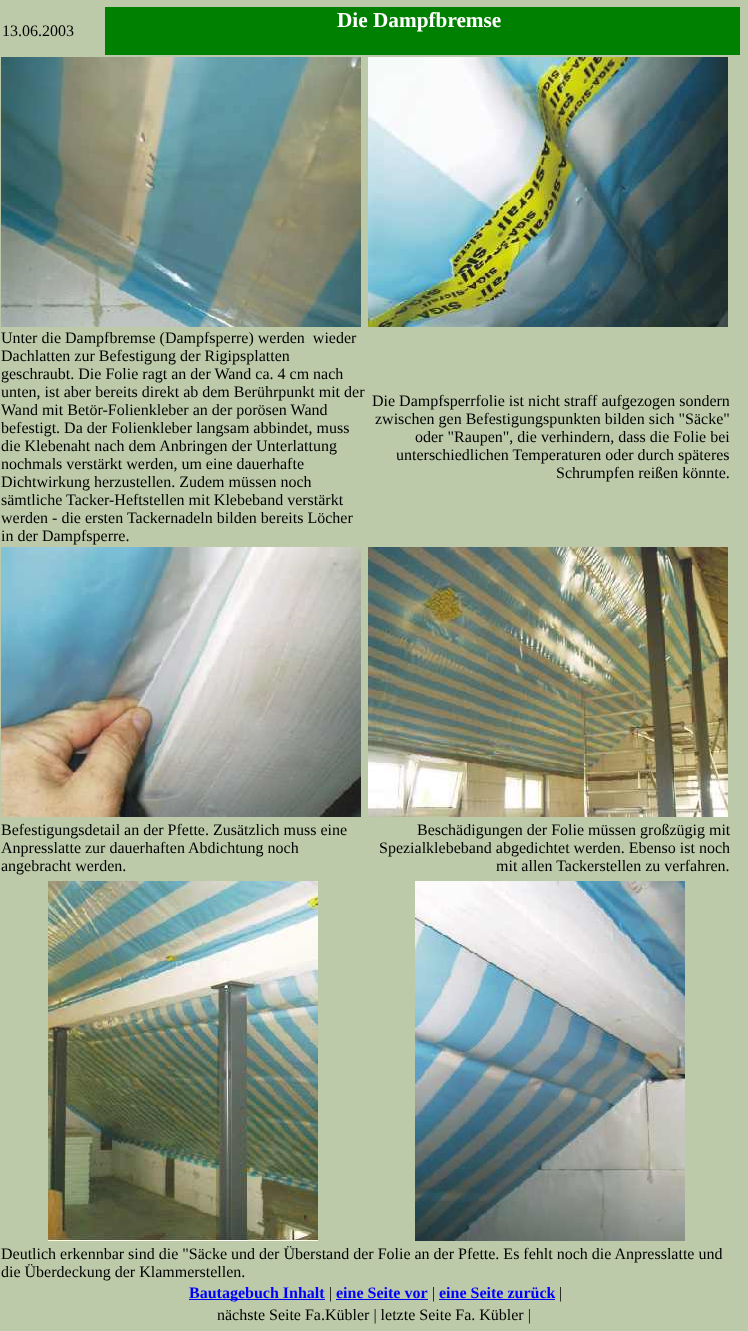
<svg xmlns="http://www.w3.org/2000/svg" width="748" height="1331">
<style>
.a{font:16px Liberation Serif;fill:#000}
.b{font:bold 21.25px Liberation Serif;fill:#fff}
.c{font:bold 16px Liberation Serif;fill:#00f}
</style>
<rect width="100%" height="100%" fill="#bccaa9"/>
<path fill="#008000" d="M105 7h635v48H105z"/>
<image href="1.png" x="1" y="57" width="360" height="270"/>
<image href="2.png" x="368" y="57" width="360" height="270"/>
<image href="3.png" x="1" y="547" width="360" height="270"/>
<image href="4.png" x="368" y="547" width="360" height="270"/>
<image href="5.png" x="48" y="881" width="270" height="360"/>
<image href="6.png" x="415" y="881" width="270" height="360"/>
<path fill="#00f" d="M189 1299h136v1H189z"/>
<path fill="#00f" d="M336 1299h92v1H336z"/>
<path fill="#00f" d="M439 1299h116v1H439z"/>
<text class="a" x="2" y="36">13.06.2003</text>
<text class="b" x="337" y="27">Die Dampfbremse</text>
<text class="a" xml:space="preserve" x="1" y="343">Unter die Dampfbremse (Dampfsperre) werden  wieder</text>
<text class="a" x="1" y="361">Dachlatten zur Befestigung der Rigipsplatten</text>
<text class="a" x="1" y="379">geschraubt. Die Folie ragt an der Wand ca. 4 cm nach</text>
<text class="a" x="1" y="397">unten, ist aber bereits direkt ab dem Berührpunkt mit der</text>
<text class="a" x="1" y="415">Wand mit Betör-Folienkleber an der porösen Wand</text>
<text class="a" x="1" y="433">befestigt. Da der Folienkleber langsam abbindet, muss</text>
<text class="a" x="1" y="451">die Klebenaht nach dem Anbringen der Unterlattung</text>
<text class="a" x="1" y="469">nochmals verstärkt werden, um eine dauerhafte</text>
<text class="a" x="1" y="487">Dichtwirkung herzustellen. Zudem müssen noch</text>
<text class="a" x="1" y="505">sämtliche Tacker-Heftstellen mit Klebeband verstärkt</text>
<text class="a" x="1" y="523">werden - die ersten Tackernadeln bilden bereits Löcher</text>
<text class="a" x="1" y="541">in der Dampfsperre.</text>
<text class="a" x="372" y="406">Die Dampfsperrfolie ist nicht straff aufgezogen sondern</text>
<text class="a" x="375" y="424">zwischen gen Befestigungspunkten bilden sich "Säcke"</text>
<text class="a" x="415" y="442">oder "Raupen", die verhindern, dass die Folie bei</text>
<text class="a" x="396" y="460">unterschiedlichen Temperaturen oder durch späteres</text>
<text class="a" x="556" y="478">Schrumpfen reißen könnte.</text>
<text class="a" x="1" y="835">Befestigungsdetail an der Pfette. Zusätzlich muss eine</text>
<text class="a" x="1" y="853">Anpresslatte zur dauerhaften Abdichtung noch</text>
<text class="a" x="1" y="871">angebracht werden.</text>
<text class="a" x="417" y="835">Beschädigungen der Folie müssen großzügig mit</text>
<text class="a" x="379" y="853">Spezialklebeband abgedichtet werden. Ebenso ist noch</text>
<text class="a" x="496" y="871">mit allen Tackerstellen zu verfahren.</text>
<text class="a" x="1" y="1259">Deutlich erkennbar sind die "Säcke und der Überstand der Folie an der Pfette. Es fehlt noch die Anpresslatte und</text>
<text class="a" x="1" y="1277">die Überdeckung der Klammerstellen.</text>
<text class="c" x="189" y="1298">Bautagebuch Inhalt</text>
<text class="a" x="329" y="1298">|</text>
<text class="c" x="336" y="1298">eine Seite vor</text>
<text class="a" x="432" y="1298">|</text>
<text class="c" x="439" y="1298">eine Seite zurück</text>
<text class="a" x="559" y="1298">|</text>
<text class="a" x="217" y="1320">nächste Seite Fa.Kübler | letzte Seite Fa. Kübler |</text>
</svg>
